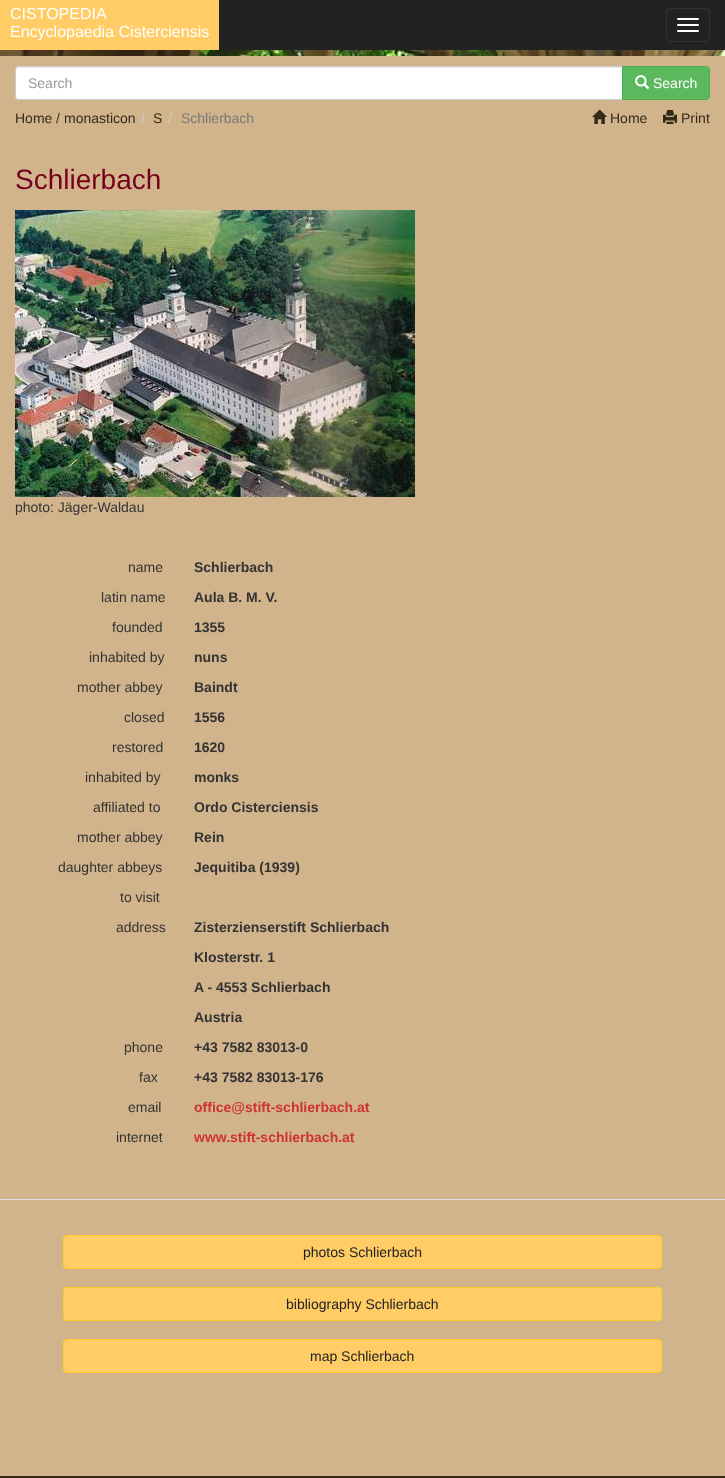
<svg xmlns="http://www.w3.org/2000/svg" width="725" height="1478">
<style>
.a{font:16px Liberation Sans;fill:#fff}
.b{font:14px Liberation Sans;fill:#999}
.c{font:14px Liberation Sans;fill:#fff}
.d{font:14px Liberation Sans;fill:#332b16}
.e{font:14px Liberation Sans;fill:#333}
.f{font:14px Liberation Sans;fill:#ccc}
.g{font:14px Liberation Sans;fill:#777}
.h{font:28px Liberation Sans;fill:#76001b}
.i{font:bold 14px Liberation Sans;fill:#333}
.j{font:bold 14px Liberation Sans;fill:#cd3333}
.k{font:14px Liberation Sans;fill:#222}
</style>
<rect width="100%" height="100%" fill="#d2b48c"/>
<path fill="#222" d="M219 0h506v50H219z"/>
<path fill="#fc6" d="M0 0h219v50H0z"/>
<rect fill="none" stroke="#333" x="666.5" y="8.5" width="43" height="33" rx="3.5"/>
<rect fill="#fff" x="677" y="18" width="22" height="2" rx="1"/>
<rect fill="#fff" x="677" y="24" width="22" height="2" rx="1"/>
<rect fill="#fff" x="677" y="30" width="22" height="2" rx="1"/>
<image href="1.png" x="0" y="50" width="725" height="6"/>
<path fill="#fff" d="M19 66h604v34h-604c-2 0-4-2-4-4v-26c0-2 2-4 4-4z"/>
<path fill="#ececec" d="M19 68h603v-1h-603c-2 0-3 1-3 3v1c0-2 1-3 3-3z"/>
<path fill="none" stroke="#ccc" d="M19 66.5h603.5v33h-603.5c-2 0-3.5-1.5-3.5-3.5v-26c0-2 1.5-3.5 3.5-3.5z"/>
<path fill="#5cb85c" stroke="#4cae4c" d="M622.5 66.5h83.5c2 0 3.5 1.5 3.5 3.5v26c0 2-1.5 3.5-3.5 3.5h-83.5z"/>
<image href="2.png" x="635" y="75" width="15" height="14"/>
<image href="3.png" x="592" y="109" width="15" height="15"/>
<image href="4.png" x="663" y="110" width="14" height="14"/>
<image href="5.png" x="15" y="210" width="400" height="287"/>
<path fill="#ddd" d="M0 1199h725v1H0z"/>
<rect fill="#fc6" stroke="#fc2" x="63.5" y="1235.5" width="598" height="33" rx="3.5"/>
<rect fill="#fc6" stroke="#fc2" x="63.5" y="1287.5" width="598" height="33" rx="3.5"/>
<rect fill="#fc6" stroke="#fc2" x="63.5" y="1339.5" width="598" height="33" rx="3.5"/>
<path fill="#332b16" d="M0 1476h725v2H0z"/>
<text class="a" x="10" y="19">CISTOPEDIA</text>
<text class="a" x="10" y="37">Encyclopaedia Cisterciensis</text>
<text class="b" x="28" y="88">Search</text>
<text class="c" x="653" y="88">Search</text>
<text class="d" x="15" y="123">Home</text>
<text class="e" x="56" y="123">/</text>
<text class="d" x="64" y="123">monasticon</text>
<text class="f" x="141" y="123">/</text>
<text class="d" x="153" y="123">S</text>
<text class="f" x="168" y="123">/</text>
<text class="g" x="181" y="123">Schlierbach</text>
<text class="d" x="610" y="123">Home</text>
<text class="d" x="681" y="123">Print</text>
<text class="h" x="15" y="189">Schlierbach</text>
<text class="e" x="15" y="512">photo: Jäger-Waldau</text>
<text class="e" x="128" y="572">name</text>
<text class="i" x="194" y="572">Schlierbach</text>
<text class="e" x="101" y="602">latin name</text>
<text class="i" x="194" y="602">Aula B. M. V.</text>
<text class="e" x="112" y="632">founded</text>
<text class="i" x="194" y="632">1355</text>
<text class="e" x="89" y="662">inhabited by</text>
<text class="i" x="194" y="662">nuns</text>
<text class="e" x="77" y="692">mother abbey</text>
<text class="i" x="194" y="692">Baindt</text>
<text class="e" x="124" y="722">closed</text>
<text class="i" x="194" y="722">1556</text>
<text class="e" x="112" y="752">restored</text>
<text class="i" x="194" y="752">1620</text>
<text class="e" x="85" y="782">inhabited by</text>
<text class="i" x="194" y="782">monks</text>
<text class="e" x="93" y="812">affiliated to</text>
<text class="i" x="194" y="812">Ordo Cisterciensis</text>
<text class="e" x="77" y="842">mother abbey</text>
<text class="i" x="194" y="842">Rein</text>
<text class="e" x="58" y="872">daughter abbeys</text>
<text class="i" x="194" y="872">Jequitiba (1939)</text>
<text class="e" x="120" y="902">to visit</text>
<text class="e" x="116" y="932">address</text>
<text class="i" x="194" y="932">Zisterzienserstift Schlierbach</text>
<text class="i" x="194" y="962">Klosterstr. 1</text>
<text class="i" x="194" y="992">A - 4553 Schlierbach</text>
<text class="i" x="194" y="1022">Austria</text>
<text class="e" x="124" y="1052">phone</text>
<text class="i" x="194" y="1052">+43 7582 83013-0</text>
<text class="e" x="139" y="1082">fax</text>
<text class="i" x="194" y="1082">+43 7582 83013-176</text>
<text class="e" x="128" y="1112">email</text>
<text class="j" x="194" y="1112">office@stift-schlierbach.at</text>
<text class="e" x="116" y="1142">internet</text>
<text class="j" x="194" y="1142">www.stift-schlierbach.at</text>
<text class="k" x="303" y="1257">photos Schlierbach</text>
<text class="k" x="286" y="1309">bibliography Schlierbach</text>
<text class="k" x="310" y="1361">map Schlierbach</text>
</svg>
